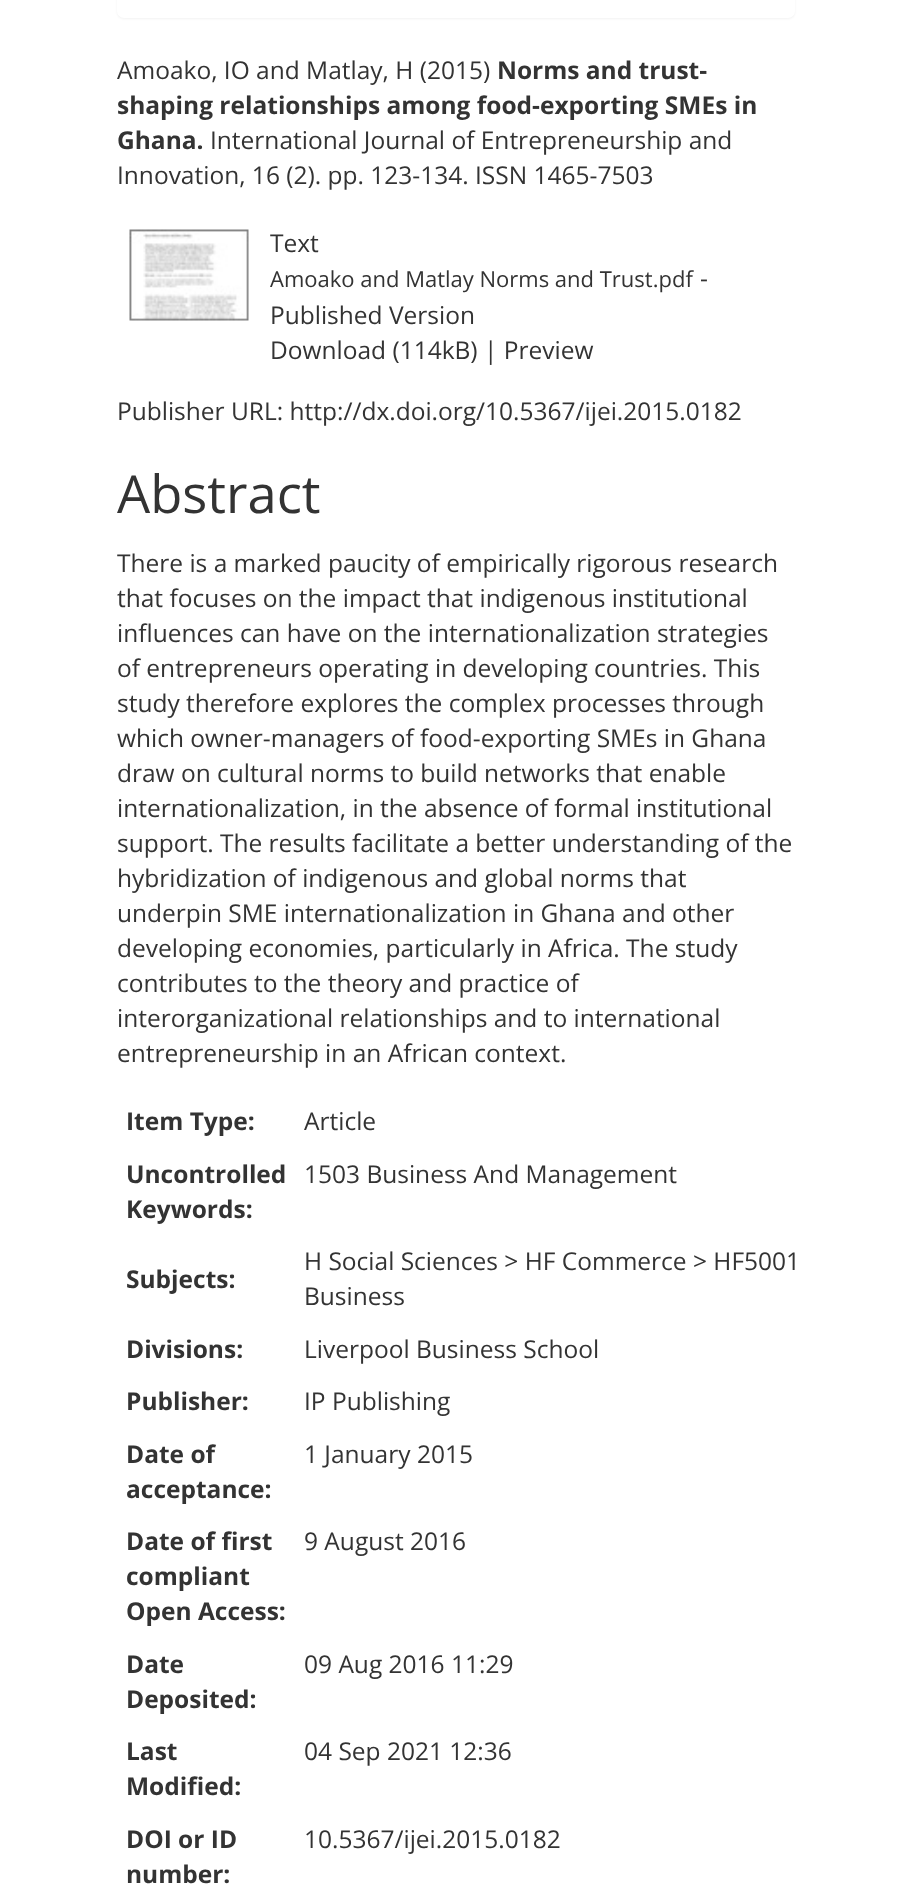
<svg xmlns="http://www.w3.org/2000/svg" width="911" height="1902">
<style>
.a{font:24.5px Open Sans;fill:#333}
.b{font:bold 24.5px Open Sans;fill:#333}
.c{font:22px Open Sans;fill:#333}
.d{font:52.5px Open Sans;fill:#333}
</style>
<rect width="100%" height="100%" fill="#fff"/>
<rect fill="#0000000d" filter="blur(1px)" x="117" y="-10" width="678" height="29" rx="7"/>
<rect fill="#fff" x="117" y="-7" width="678" height="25" rx="7"/>
<image href="1.png" x="129" y="229" width="120" height="92"/>
<text class="a" x="117" y="79">Amoako, IO and Matlay, H (2015)</text>
<text class="b" x="497" y="79">Norms and trust-</text>
<text class="b" x="117" y="114">shaping relationships among food-exporting SMEs in</text>
<text class="b" x="117" y="149">Ghana.</text>
<text class="a" x="210" y="149">International Journal of Entrepreneurship and</text>
<text class="a" x="117" y="184">Innovation, 16 (2). pp. 123-134. ISSN 1465-7503</text>
<text class="a" x="270" y="252">Text</text>
<text class="c" x="270" y="287">Amoako and Matlay Norms and Trust.pdf</text>
<text class="a" x="700" y="287">-</text>
<text class="a" x="270" y="324">Published Version</text>
<text class="a" x="270" y="359">Download (114kB) | Preview</text>
<text class="a" x="117" y="420">Publisher URL: http://dx.doi.org/10.5367/ijei.2015.0182</text>
<text class="d" x="117" y="513">Abstract</text>
<text class="a" x="117" y="572">There is a marked paucity of empirically rigorous research</text>
<text class="a" x="117" y="607">that focuses on the impact that indigenous institutional</text>
<text class="a" x="117" y="642">influences can have on the internationalization strategies</text>
<text class="a" x="117" y="677">of entrepreneurs operating in developing countries. This</text>
<text class="a" x="117" y="712">study therefore explores the complex processes through</text>
<text class="a" x="117" y="747">which owner-managers of food-exporting SMEs in Ghana</text>
<text class="a" x="117" y="782">draw on cultural norms to build networks that enable</text>
<text class="a" x="117" y="817">internationalization, in the absence of formal institutional</text>
<text class="a" x="117" y="852">support. The results facilitate a better understanding of the</text>
<text class="a" x="117" y="887">hybridization of indigenous and global norms that</text>
<text class="a" x="117" y="922">underpin SME internationalization in Ghana and other</text>
<text class="a" x="117" y="957">developing economies, particularly in Africa. The study</text>
<text class="a" x="117" y="992">contributes to the theory and practice of</text>
<text class="a" x="117" y="1027">interorganizational relationships and to international</text>
<text class="a" x="117" y="1062">entrepreneurship in an African context.</text>
<text class="b" x="126" y="1130">Item Type:</text>
<text class="a" x="304" y="1130">Article</text>
<text class="b" x="126" y="1183">Uncontrolled</text>
<text class="b" x="126" y="1218">Keywords:</text>
<text class="a" x="304" y="1183">1503 Business And Management</text>
<text class="b" x="126" y="1288">Subjects:</text>
<text class="a" x="304" y="1270">H Social Sciences &gt; HF Commerce &gt; HF5001</text>
<text class="a" x="304" y="1305">Business</text>
<text class="b" x="126" y="1358">Divisions:</text>
<text class="a" x="304" y="1358">Liverpool Business School</text>
<text class="b" x="126" y="1410">Publisher:</text>
<text class="a" x="304" y="1410">IP Publishing</text>
<text class="b" x="126" y="1463">Date of</text>
<text class="b" x="126" y="1498">acceptance:</text>
<text class="a" x="304" y="1463">1 January 2015</text>
<text class="b" x="126" y="1550">Date of first</text>
<text class="b" x="126" y="1585">compliant</text>
<text class="b" x="126" y="1620">Open Access:</text>
<text class="a" x="304" y="1550">9 August 2016</text>
<text class="b" x="126" y="1673">Date</text>
<text class="b" x="126" y="1708">Deposited:</text>
<text class="a" x="304" y="1673">09 Aug 2016 11:29</text>
<text class="b" x="126" y="1760">Last</text>
<text class="b" x="126" y="1795">Modified:</text>
<text class="a" x="304" y="1760">04 Sep 2021 12:36</text>
<text class="b" x="126" y="1848">DOI or ID</text>
<text class="b" x="126" y="1883">number:</text>
<text class="a" x="304" y="1848">10.5367/ijei.2015.0182</text>
</svg>
